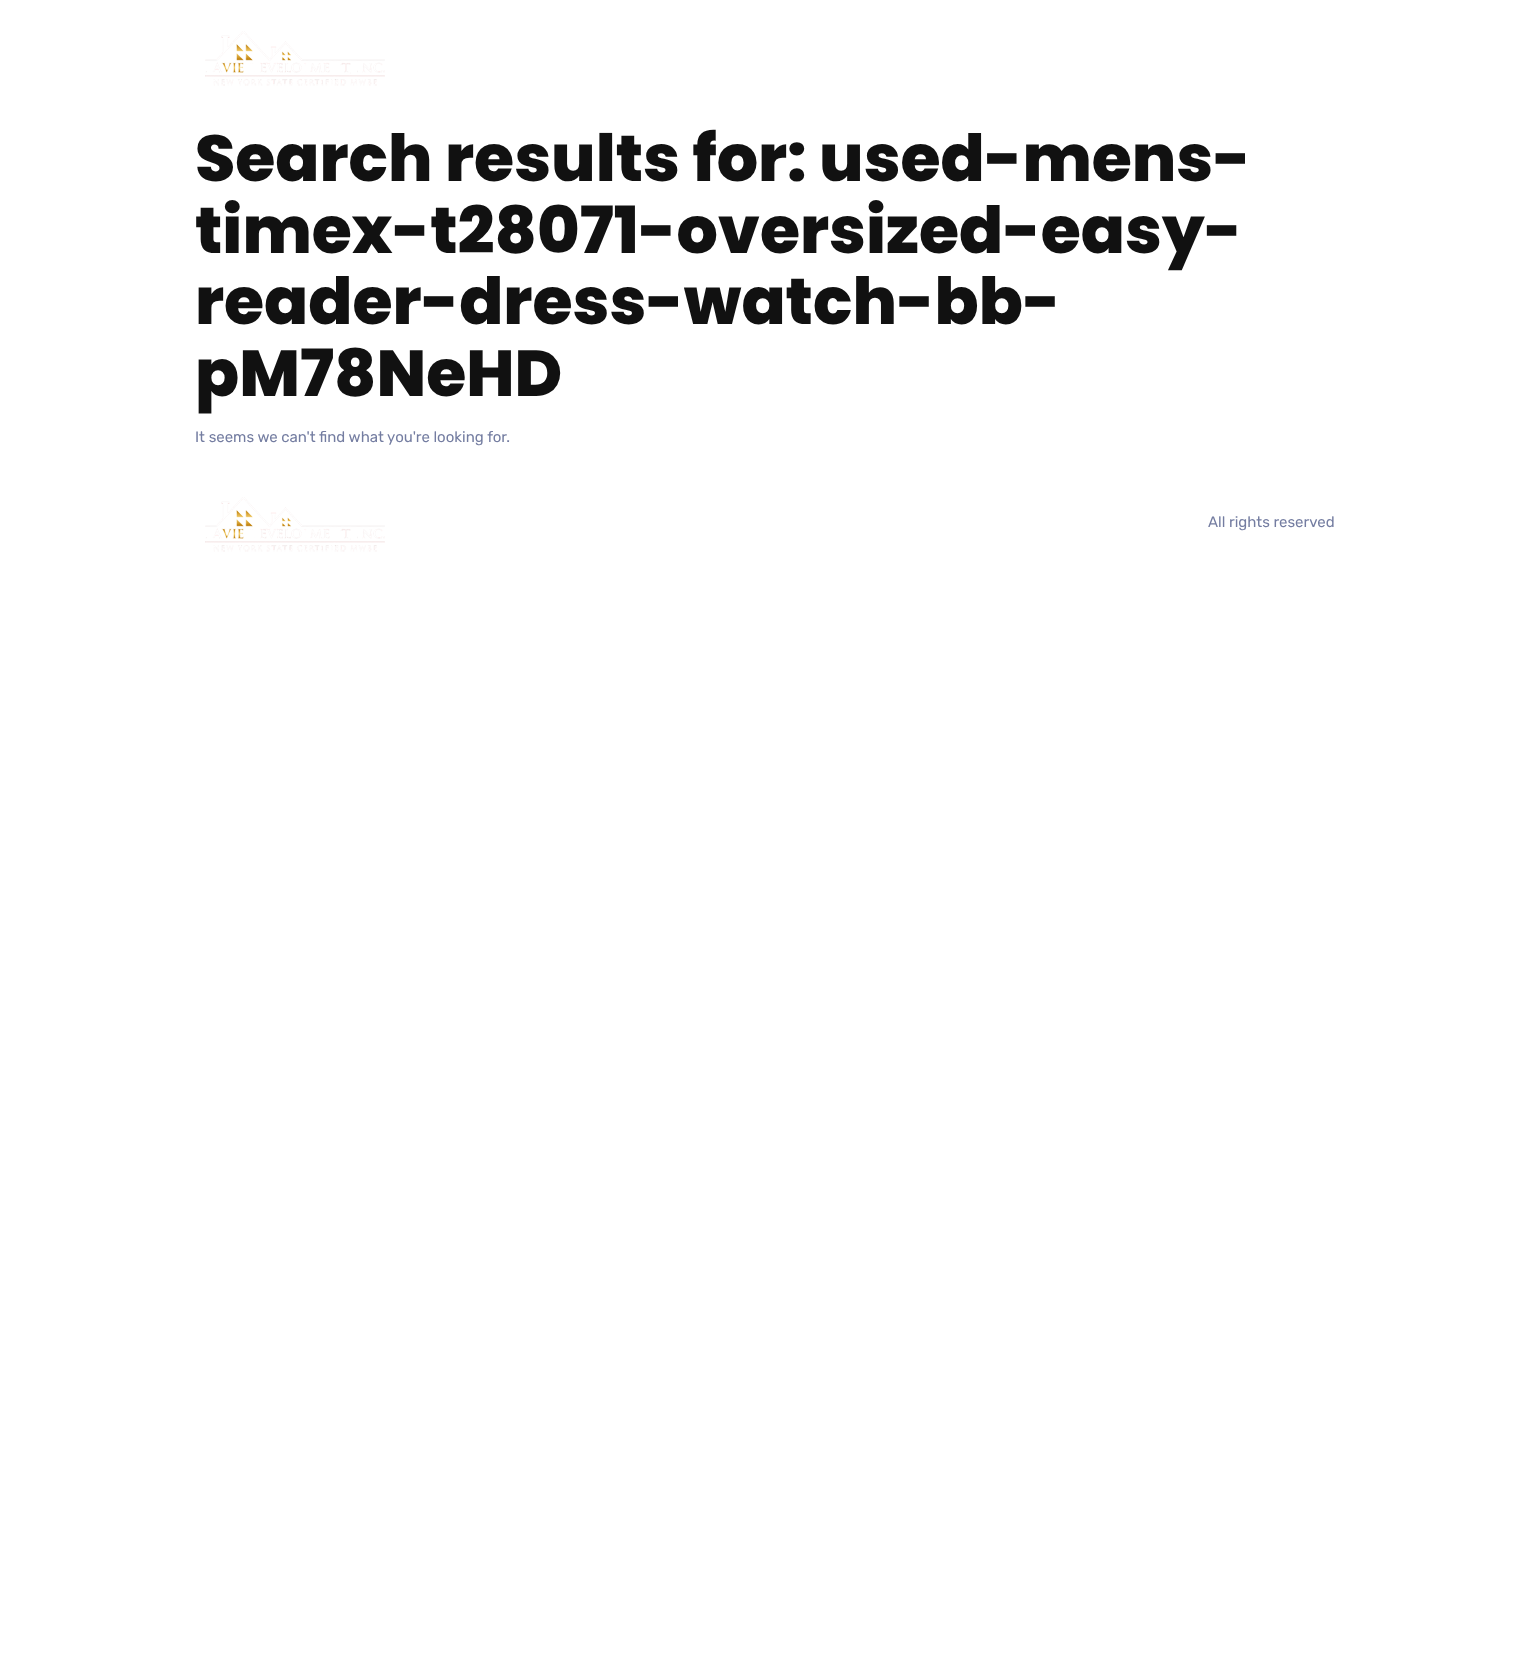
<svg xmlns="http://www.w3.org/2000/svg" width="1529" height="1657">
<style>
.a{font:800 65px Poppins;fill:#111}
.b{font:15px Rubik;fill:#747da1}
</style>
<rect width="100%" height="100%" fill="#fff"/>
<image href="1.png" x="205" y="31" width="180" height="55"/>
<image href="1.png" x="205" y="497" width="180" height="55"/>
<text class="a" x="195" y="181">Search results for: used-mens-</text>
<text class="a" x="195" y="253">timex-t28071-oversized-easy-</text>
<text class="a" x="195" y="324">reader-dress-watch-bb-</text>
<text class="a" x="195" y="396">pM78NeHD</text>
<text class="b" x="195" y="442">It seems we can't find what you're looking for.</text>
<text class="b" x="1208" y="527">All rights reserved</text>
</svg>
